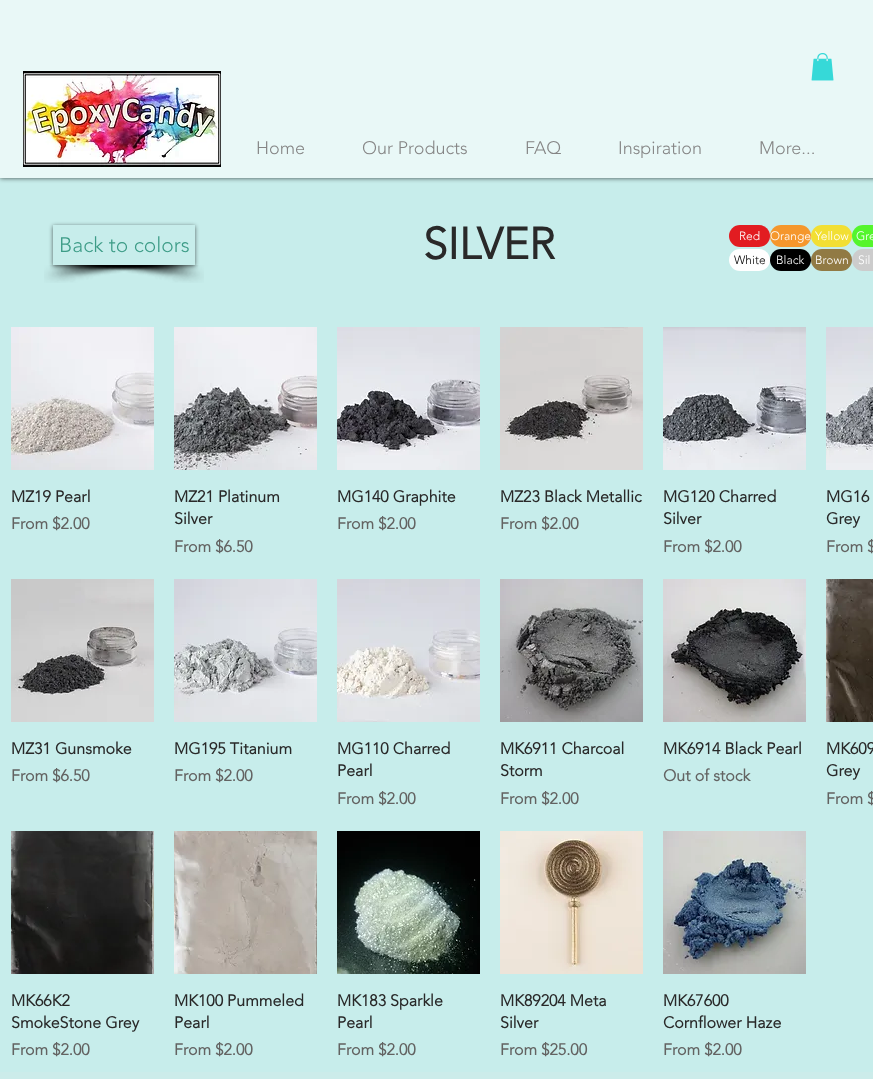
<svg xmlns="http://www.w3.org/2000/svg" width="873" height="1079">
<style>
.a{font:300 18px 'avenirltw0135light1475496';fill:#858585}
.b{font:300 21px 'avenirltw0135light1475496';fill:#3d9c87}
.c{font:bold 44px 'avenirltw0135light1475496';fill:#292929}
.d{font:300 12px 'avenirltw0135light1475496';fill:#fff}
.e{font:300 12px 'avenirltw0135light1475496';fill:#000}
.f{font:bold 16px 'avenirltw0135light1475496';fill:#292929}
.g{font:bold 16px 'avenirltw0135light1475496';fill:#636362}
</style>
<defs>
<clipPath id="clip1"><path d="M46 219h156v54h-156zm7 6h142v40h-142z" clip-rule="evenodd"/></clipPath>
</defs>
<rect width="100%" height="100%" fill="#c7edeb"/>
<path fill="#000000b3" filter="blur(2.5px)" d="M0 0h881v178H0z"/>
<path fill="#e9f8f7" d="M0 0h873v178H0z"/>
<image href="1.png" x="811" y="53" width="23" height="28"/>
<image href="2.png" x="23" y="71" width="198" height="96"/>
<image href="3.png" x="44" y="265" width="154" height="18"/>
<image href="4.png" x="50" y="265" width="154" height="18"/>
<g clip-path="url(#clip1)">
<path fill="#00000099" filter="blur(2px)" d="M53 226h142v40H53z"/>
</g>
<rect fill="#e21c21" x="729" y="225" width="41" height="22" rx="11"/>
<rect fill="#f5972c" x="770" y="225" width="41" height="22" rx="11"/>
<rect fill="#f2df33" x="811" y="225" width="41" height="22" rx="11"/>
<rect fill="#54f52c" x="852" y="225" width="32" height="22" rx="11"/>
<rect fill="#fff" x="729" y="249" width="41" height="22" rx="11"/>
<rect fill="#000" x="770" y="249" width="41" height="22" rx="11"/>
<rect fill="#917a44" x="811" y="249" width="41" height="22" rx="11"/>
<rect fill="#ccc" x="852" y="249" width="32" height="22" rx="11"/>
<image href="5.png" x="11" y="327" width="143" height="143"/>
<image href="6.png" x="174" y="327" width="143" height="143"/>
<image href="7.png" x="337" y="327" width="143" height="143"/>
<image href="8.png" x="500" y="327" width="143" height="143"/>
<image href="9.png" x="663" y="327" width="143" height="143"/>
<image href="10.png" x="826" y="327" width="47" height="143"/>
<image href="11.png" x="11" y="579" width="143" height="143"/>
<image href="12.png" x="174" y="579" width="143" height="143"/>
<image href="13.png" x="337" y="579" width="143" height="143"/>
<image href="14.png" x="500" y="579" width="143" height="143"/>
<image href="15.png" x="663" y="579" width="143" height="143"/>
<image href="16.png" x="826" y="579" width="47" height="143"/>
<image href="17.png" x="11" y="831" width="143" height="143"/>
<image href="18.png" x="174" y="831" width="143" height="143"/>
<image href="19.png" x="337" y="831" width="143" height="143"/>
<image href="20.png" x="500" y="831" width="143" height="143"/>
<image href="21.png" x="663" y="831" width="143" height="143"/>
<path fill="#ccecea" d="M0 1072h873v7H0z"/>
<text class="a" x="256" y="154">Home</text>
<text class="a" x="362" y="154">Our Products</text>
<text class="a" x="525" y="154">FAQ</text>
<text class="a" x="618" y="154">Inspiration</text>
<text class="a" x="759" y="154">More...</text>
<text class="b" x="59" y="252">Back to colors</text>
<text class="c" x="423" y="259">SILVER</text>
<text class="d" x="739" y="240">Red</text>
<text class="d" x="770" y="240">Orange</text>
<text class="d" x="815" y="240">Yellow</text>
<text class="d" x="856" y="240">Gre</text>
<text class="e" x="734" y="264">White</text>
<text class="d" x="776" y="264">Black</text>
<text class="d" x="815" y="264">Brown</text>
<text class="d" x="858" y="264">Sil</text>
<text class="f" x="11" y="502">MZ19 Pearl</text>
<text class="g" x="11" y="529">From $2.00</text>
<text class="f" x="174" y="502">MZ21 Platinum</text>
<text class="f" x="174" y="524">Silver</text>
<text class="g" x="174" y="552">From $6.50</text>
<text class="f" x="337" y="502">MG140 Graphite</text>
<text class="g" x="337" y="529">From $2.00</text>
<text class="f" x="500" y="502">MZ23 Black Metallic</text>
<text class="g" x="500" y="529">From $2.00</text>
<text class="f" x="663" y="502">MG120 Charred</text>
<text class="f" x="663" y="524">Silver</text>
<text class="g" x="663" y="552">From $2.00</text>
<text class="f" x="826" y="502">MG16</text>
<text class="f" x="826" y="524">Grey</text>
<text class="g" x="826" y="552">From $</text>
<text class="f" x="11" y="754">MZ31 Gunsmoke</text>
<text class="g" x="11" y="781">From $6.50</text>
<text class="f" x="174" y="754">MG195 Titanium</text>
<text class="g" x="174" y="781">From $2.00</text>
<text class="f" x="337" y="754">MG110 Charred</text>
<text class="f" x="337" y="776">Pearl</text>
<text class="g" x="337" y="804">From $2.00</text>
<text class="f" x="500" y="754">MK6911 Charcoal</text>
<text class="f" x="500" y="776">Storm</text>
<text class="g" x="500" y="804">From $2.00</text>
<text class="f" x="663" y="754">MK6914 Black Pearl</text>
<text class="g" x="663" y="781">Out of stock</text>
<text class="f" x="826" y="754">MK609</text>
<text class="f" x="826" y="776">Grey</text>
<text class="g" x="826" y="804">From $</text>
<text class="f" x="11" y="1006">MK66K2</text>
<text class="f" x="11" y="1028">SmokeStone Grey</text>
<text class="g" x="11" y="1055">From $2.00</text>
<text class="f" x="174" y="1006">MK100 Pummeled</text>
<text class="f" x="174" y="1028">Pearl</text>
<text class="g" x="174" y="1055">From $2.00</text>
<text class="f" x="337" y="1006">MK183 Sparkle</text>
<text class="f" x="337" y="1028">Pearl</text>
<text class="g" x="337" y="1055">From $2.00</text>
<text class="f" x="500" y="1006">MK89204 Meta</text>
<text class="f" x="500" y="1028">Silver</text>
<text class="g" x="500" y="1055">From $25.00</text>
<text class="f" x="663" y="1006">MK67600</text>
<text class="f" x="663" y="1028">Cornflower Haze</text>
<text class="g" x="663" y="1055">From $2.00</text>
</svg>
